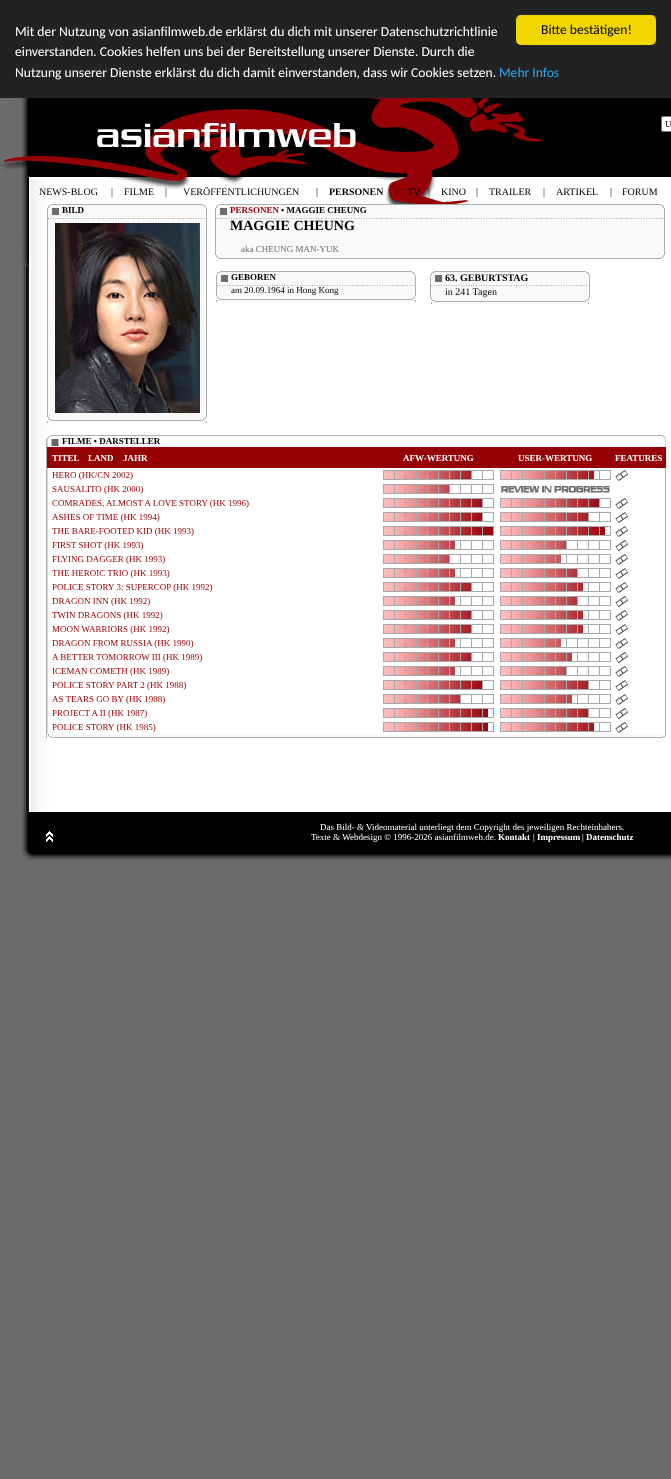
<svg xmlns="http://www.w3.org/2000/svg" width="671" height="1479">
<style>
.a{font:13.6px Carlito;fill:#fff}
.b{font:13.6px Carlito;fill:#31a8f0}
.c{font:13.6px Carlito;fill:#000}
.d{font:9px Liberation Serif;fill:#000}
.e{font:bold 9px Liberation Serif;fill:#000}
.f{font:bold 9px Liberation Serif;fill:#950005}
.g{font:bold 14px Liberation Serif;fill:#000}
.h{font:9px Liberation Serif;fill:#6c6c6c}
.i{font:bold 10px Liberation Serif;fill:#000}
.j{font:10px Liberation Serif;fill:#000}
.k{font:bold 9px Liberation Serif;fill:#fff}
.l{font:9px Liberation Serif;fill:#950005}
.m{font:9px Liberation Serif;fill:#fff}
</style>
<rect width="100%" height="100%" fill="#6b6b6b"/>
<path fill="#222" d="M0 0h671v98H0z"/>
<rect fill="#f1d600" x="516" y="15" width="140" height="30" rx="5"/>
<image href="1.png" x="22" y="266" width="649" height="546"/>
<image href="2.png" x="0" y="98" width="671" height="168"/>
<image href="3.png" x="22" y="812" width="649" height="50"/>
<rect fill="#fff" stroke="#767676" x="661.5" y="116.5" width="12" height="15" rx="1.5"/>
<image href="4.png" x="47" y="204" width="160" height="219"/>
<image href="5.png" x="55" y="223" width="145" height="190"/>
<image href="6.png" x="47" y="417" width="160" height="4"/>
<image href="7.png" x="215" y="204" width="450" height="51"/>
<image href="8.png" x="215" y="255" width="450" height="4"/>
<image href="9.png" x="216" y="271" width="200" height="31"/>
<image href="10.png" x="216" y="296" width="200" height="4"/>
<image href="11.png" x="430" y="271" width="160" height="27"/>
<image href="12.png" x="430" y="298" width="160" height="6"/>
<image href="13.png" x="46" y="435" width="620" height="303"/>
<path fill="#950005" d="M47 447h619v21H47z"/>
<image href="14.png" x="383" y="470" width="111" height="10"/>
<image href="15.png" x="500" y="470" width="111" height="10"/>
<image href="16.png" x="615" y="470" width="13" height="11"/>
<image href="17.png" x="383" y="484" width="111" height="10"/>
<image href="18.png" x="501" y="486" width="109" height="7"/>
<image href="19.png" x="383" y="498" width="111" height="10"/>
<image href="19.png" x="500" y="498" width="111" height="10"/>
<image href="16.png" x="615" y="498" width="13" height="11"/>
<image href="19.png" x="383" y="512" width="111" height="10"/>
<image href="14.png" x="500" y="512" width="111" height="10"/>
<image href="16.png" x="615" y="512" width="13" height="11"/>
<image href="20.png" x="383" y="526" width="111" height="10"/>
<image href="21.png" x="500" y="526" width="111" height="10"/>
<image href="16.png" x="615" y="526" width="13" height="11"/>
<image href="22.png" x="383" y="540" width="111" height="10"/>
<image href="17.png" x="500" y="540" width="111" height="10"/>
<image href="16.png" x="615" y="540" width="13" height="11"/>
<image href="17.png" x="383" y="554" width="111" height="10"/>
<image href="23.png" x="500" y="554" width="111" height="10"/>
<image href="16.png" x="615" y="554" width="13" height="11"/>
<image href="22.png" x="383" y="568" width="111" height="10"/>
<image href="24.png" x="500" y="568" width="111" height="10"/>
<image href="16.png" x="615" y="568" width="13" height="11"/>
<image href="14.png" x="383" y="582" width="111" height="10"/>
<image href="25.png" x="500" y="582" width="111" height="10"/>
<image href="16.png" x="615" y="582" width="13" height="11"/>
<image href="22.png" x="383" y="596" width="111" height="10"/>
<image href="24.png" x="500" y="596" width="111" height="10"/>
<image href="16.png" x="615" y="596" width="13" height="11"/>
<image href="14.png" x="383" y="610" width="111" height="10"/>
<image href="25.png" x="500" y="610" width="111" height="10"/>
<image href="16.png" x="615" y="610" width="13" height="11"/>
<image href="14.png" x="383" y="624" width="111" height="10"/>
<image href="25.png" x="500" y="624" width="111" height="10"/>
<image href="16.png" x="615" y="624" width="13" height="11"/>
<image href="22.png" x="383" y="638" width="111" height="10"/>
<image href="23.png" x="500" y="638" width="111" height="10"/>
<image href="16.png" x="615" y="638" width="13" height="11"/>
<image href="14.png" x="383" y="652" width="111" height="10"/>
<image href="22.png" x="500" y="652" width="111" height="10"/>
<image href="16.png" x="615" y="652" width="13" height="11"/>
<image href="22.png" x="383" y="666" width="111" height="10"/>
<image href="17.png" x="500" y="666" width="111" height="10"/>
<image href="16.png" x="615" y="666" width="13" height="11"/>
<image href="19.png" x="383" y="680" width="111" height="10"/>
<image href="14.png" x="500" y="680" width="111" height="10"/>
<image href="16.png" x="615" y="680" width="13" height="11"/>
<image href="24.png" x="383" y="694" width="111" height="10"/>
<image href="22.png" x="500" y="694" width="111" height="10"/>
<image href="16.png" x="615" y="694" width="13" height="11"/>
<image href="21.png" x="383" y="708" width="111" height="10"/>
<image href="14.png" x="500" y="708" width="111" height="10"/>
<image href="16.png" x="615" y="708" width="13" height="11"/>
<image href="21.png" x="383" y="722" width="111" height="10"/>
<image href="15.png" x="500" y="722" width="111" height="10"/>
<image href="16.png" x="615" y="722" width="13" height="11"/>
<image href="26.png" x="47" y="734" width="619" height="4"/>
<image href="27.png" x="46" y="831" width="7" height="11"/>
<text class="a" x="15" y="36">Mit der Nutzung von asianfilmweb.de erklärst du dich mit unserer Datenschutzrichtlinie</text>
<text class="a" x="15" y="56">einverstanden. Cookies helfen uns bei der Bereitstellung unserer Dienste. Durch die</text>
<text class="a" x="15" y="77">Nutzung unserer Dienste erklärst du dich damit einverstanden, dass wir Cookies setzen.</text>
<text class="b" x="499" y="77">Mehr Infos</text>
<text class="c" x="541" y="34">Bitte bestätigen!</text>
<text class="d" x="665" y="127">U</text>
<text class="e" x="62" y="213">BILD</text>
<text class="f" x="230" y="213">PERSONEN</text>
<text class="e" x="281" y="213">• MAGGIE CHEUNG</text>
<text class="g" x="230" y="230">MAGGIE CHEUNG</text>
<text class="h" x="241" y="252">aka CHEUNG MAN-YUK</text>
<text class="e" x="231" y="280">GEBOREN</text>
<text class="d" x="231" y="293">am 20.09.1964 in Hong Kong</text>
<text class="i" x="445" y="281">63. GEBURTSTAG</text>
<text class="j" x="445" y="295">in 241 Tagen</text>
<text class="e" x="62" y="444">FILME • DARSTELLER</text>
<text class="k" x="52" y="461">TITEL</text>
<text class="k" x="88" y="461">LAND</text>
<text class="k" x="123" y="461">JAHR</text>
<text class="k" x="403" y="461">AFW-WERTUNG</text>
<text class="k" x="518" y="461">USER-WERTUNG</text>
<text class="k" x="615" y="461">FEATURES</text>
<text class="l" x="52" y="478">HERO (HK/CN 2002)</text>
<text class="l" x="52" y="492">SAUSALITO (HK 2000)</text>
<text class="l" x="52" y="506">COMRADES, ALMOST A LOVE STORY (HK 1996)</text>
<text class="l" x="52" y="520">ASHES OF TIME (HK 1994)</text>
<text class="l" x="52" y="534">THE BARE-FOOTED KID (HK 1993)</text>
<text class="l" x="52" y="548">FIRST SHOT (HK 1993)</text>
<text class="l" x="52" y="562">FLYING DAGGER (HK 1993)</text>
<text class="l" x="52" y="576">THE HEROIC TRIO (HK 1993)</text>
<text class="l" x="52" y="590">POLICE STORY 3: SUPERCOP (HK 1992)</text>
<text class="l" x="52" y="604">DRAGON INN (HK 1992)</text>
<text class="l" x="52" y="618">TWIN DRAGONS (HK 1992)</text>
<text class="l" x="52" y="632">MOON WARRIORS (HK 1992)</text>
<text class="l" x="52" y="646">DRAGON FROM RUSSIA (HK 1990)</text>
<text class="l" x="52" y="660">A BETTER TOMORROW III (HK 1989)</text>
<text class="l" x="52" y="674">ICEMAN COMETH (HK 1989)</text>
<text class="l" x="52" y="688">POLICE STORY PART 2 (HK 1988)</text>
<text class="l" x="52" y="702">AS TEARS GO BY (HK 1988)</text>
<text class="l" x="52" y="716">PROJECT A II (HK 1987)</text>
<text class="l" x="52" y="730">POLICE STORY (HK 1985)</text>
<text class="m" x="320" y="830">Das Bild- &amp; Videomaterial unterliegt dem Copyright des jeweiligen Rechteinhabers.</text>
<text class="m" x="311" y="840">Texte &amp; Webdesign © 1996-2026 asianfilmweb.de.</text>
<text class="k" x="498" y="840">Kontakt</text>
<text class="m" x="533" y="840">|</text>
<text class="k" x="537" y="840">Impressum</text>
<text class="m" x="582" y="840">|</text>
<text class="k" x="586" y="840">Datenschutz</text>
<text class="j" x="39" y="195">NEWS-BLOG</text>
<text class="j" x="111" y="195">|</text>
<text class="j" x="124" y="195">FILME</text>
<text class="j" x="165" y="195">|</text>
<text class="j" x="183" y="195">VERÖFFENTLICHUNGEN</text>
<text class="j" x="316" y="195">|</text>
<text class="i" x="329" y="195">PERSONEN</text>
<text class="j" x="395" y="195">|</text>
<text class="j" x="407" y="195">TV</text>
<text class="j" x="428" y="195">|</text>
<text class="j" x="441" y="195">KINO</text>
<text class="j" x="476" y="195">|</text>
<text class="j" x="489" y="195">TRAILER</text>
<text class="j" x="543" y="195">|</text>
<text class="j" x="556" y="195">ARTIKEL</text>
<text class="j" x="610" y="195">|</text>
<text class="j" x="622" y="195">FORUM</text>
</svg>
